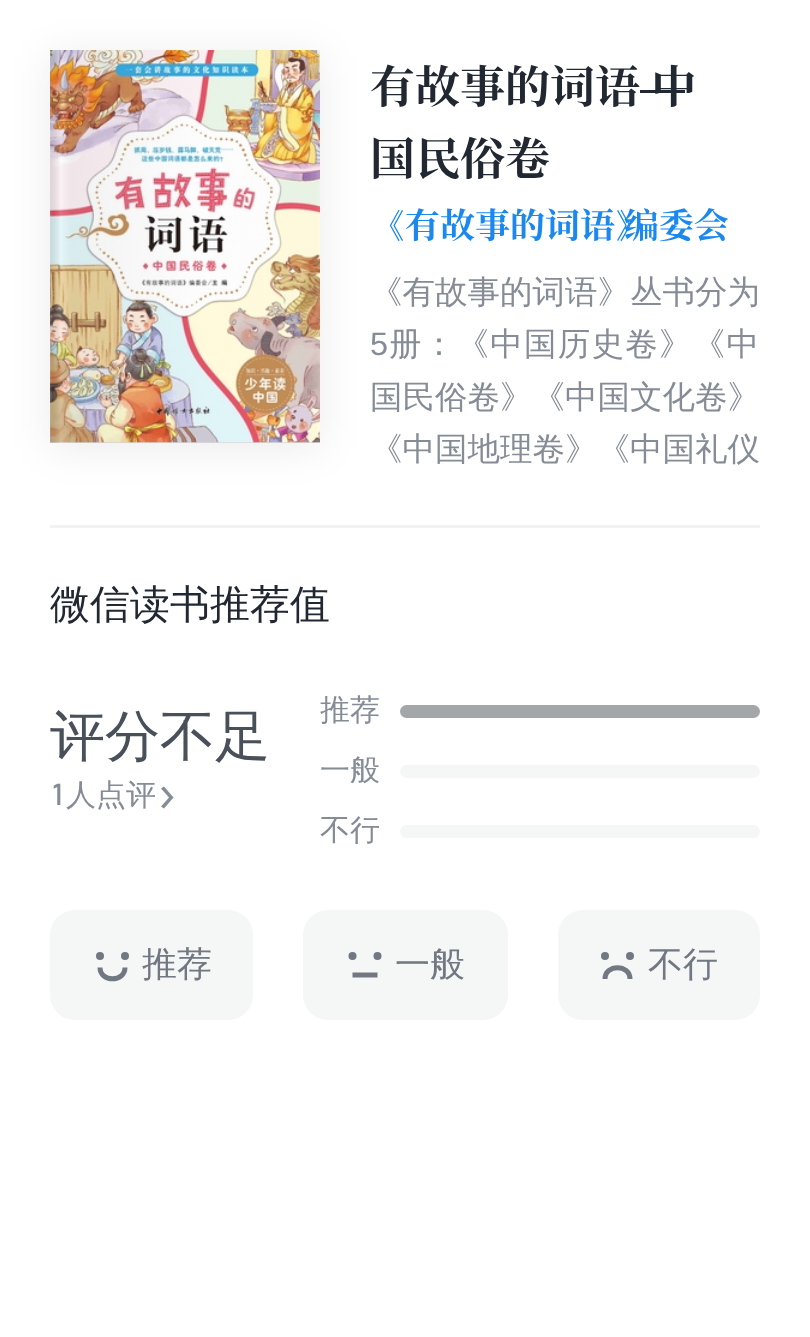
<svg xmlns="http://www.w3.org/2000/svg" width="810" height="1337">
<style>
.a{font:bold 45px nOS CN;fill:#212832}
.b{font:45px Liberation Sans;fill:#212832}
.c{font:500 35px WenQuanYi Zen Hei;fill:#1b88ee}
.d{font:bold 35px nOS CN;fill:#1b88ee}
.e{font:500 32.5px WenQuanYi Zen Hei;fill:#858c96}
.f{font:32.5px Liberation Sans;letter-spacing:1.25px;fill:#858c96}
.g{font:500 32.5px WenQuanYi Zen Hei;letter-spacing:1.25px;fill:#858c96}
.h{font:500 40px WenQuanYi Zen Hei;fill:#212832}
.i{font:500 55px WenQuanYi Zen Hei;fill:#49505a}
.j{font:500 30px DIN;fill:#858c96}
.k{font:500 30px WenQuanYi Zen Hei;fill:#858c96}
.l{font:500 35px WenQuanYi Zen Hei;fill:#717882}
</style>
<defs>
<linearGradient id="g1" gradientUnits="userSpaceOnUse" x1="50" y1="246" x2="320" y2="246"><stop offset="0" stop-color="#a1a1a1" stop-opacity="0.25"/><stop offset="0.01" stop-color="#151514" stop-opacity="0.1"/><stop offset="0.04" stop-color="#fff" stop-opacity="0.15"/><stop offset="0.08" stop-color="#949494" stop-opacity="0.1"/><stop offset="0.57" stop-color="#949494" stop-opacity="0"/><stop offset="0.57" stop-color="#dfdada" stop-opacity="0"/><stop offset="0.91" stop-color="#dfdada" stop-opacity="0.03"/><stop offset="0.98" stop-color="#dfdada" stop-opacity="0.05"/><stop offset="1" stop-color="#fff" stop-opacity="0.1"/></linearGradient>
</defs>
<rect width="100%" height="100%" fill="#fff"/>
<path fill="#f2f2f2" d="M50 525h710v3H50z"/>
<path fill="#00000014" filter="blur(20px)" d="M50 55h270v393H50z"/>
<path fill="#d8d8d8" d="M50 442h270v1H50z"/>
<image href="1.png" x="50" y="50" width="270" height="393"/>
<path fill="url(#g1)" d="M50 50h270v393H50z"/>
<path fill="#858c96" d="M169 797.5l-8 9l3 2l9.5-11l-9.5-11l-3 2z"/>
<rect fill="#f5f6f6" x="400" y="705" width="360" height="13" rx="6.5"/>
<rect fill="#0d141e59" x="400" y="705" width="360" height="13" rx="6.5"/>
<rect fill="#f5f6f6" x="400" y="765" width="360" height="13" rx="6.5"/>
<rect fill="#f5f6f6" x="400" y="825" width="360" height="13" rx="6.5"/>
<rect fill="#f5f6f6" x="50" y="910" width="203" height="110" rx="25"/>
<path fill="none" stroke="#717882" stroke-width="5" d="M100 967.5c0 15 25 15 25 0"/>
<circle fill="#717882" cx="100" cy="956" r="4"/>
<circle fill="#717882" cx="125" cy="956" r="4"/>
<rect fill="#f5f6f6" x="303" y="910" width="205" height="110" rx="25"/>
<path fill="none" stroke="#717882" stroke-width="5" d="M352.5 975h25"/>
<circle fill="#717882" cx="352.5" cy="956" r="4"/>
<circle fill="#717882" cx="377.5" cy="956" r="4"/>
<rect fill="#f5f6f6" x="558" y="910" width="202" height="110" rx="25"/>
<path fill="none" stroke="#717882" stroke-width="5" d="M605 979c0-15 25-15 25 0"/>
<circle fill="#717882" cx="605" cy="956" r="4"/>
<circle fill="#717882" cx="630" cy="956" r="4"/>
<text class="a" x="370" y="103">有故事的词语 中</text>
<text class="b" x="640" y="103">—</text>
<text class="a" x="370" y="175">国民俗卷</text>
<text class="c" x="370" y="238">《</text>
<text class="d" x="405" y="238">有故事的词语 编委会</text>
<text class="c" x="615" y="238">》</text>
<text class="e" x="370" y="303">《有故事的词语》丛书分为</text>
<text class="f" x="370" y="355">5</text>
<text class="g" x="389" y="355">册：《中国历史卷》《中</text>
<text class="e" x="370" y="408">国民俗卷》《中国文化卷》</text>
<text class="e" x="370" y="460">《中国地理卷》《中国礼仪</text>
<text class="h" x="50" y="618">微信读书推荐值</text>
<text class="i" x="50" y="755">评分不足</text>
<text class="j" x="50" y="805">1</text>
<text class="k" x="66" y="805">人点评</text>
<text class="k" x="320" y="720">推荐</text>
<text class="k" x="320" y="780">一般</text>
<text class="k" x="320" y="840">不行</text>
<text class="l" x="142" y="976">推荐</text>
<text class="l" x="395" y="976">一般</text>
<text class="l" x="648" y="976">不行</text>
</svg>
